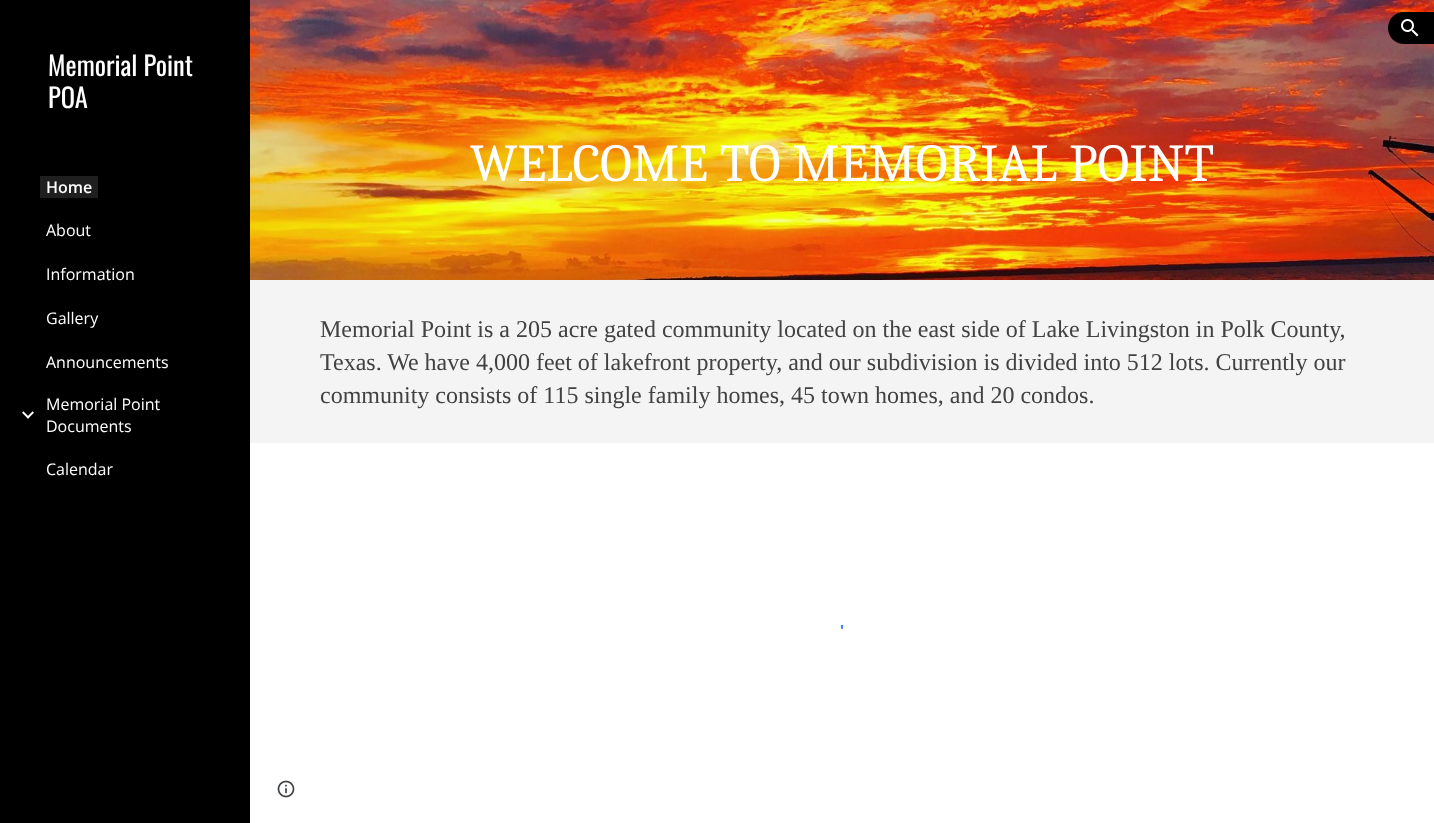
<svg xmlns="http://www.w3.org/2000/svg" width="1434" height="823">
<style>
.a{font:26.5px Oswald;fill:#fff}
.b{font:600 16px Open Sans;fill:#fff}
.c{font:16px Open Sans;fill:#fff}
.d{font:53.3px Caladea;fill:#fff}
.e{font:24px Liberation Serif;fill:#424242}
</style>
<defs>
<clipPath id="clip1"><path d="M828 625h14v28H828z"/></clipPath>
<clipPath id="clip2"><path d="M841 625h2v28H841z"/></clipPath>
<clipPath id="clip3"><path d="M842 625h14v28H842z"/></clipPath>
</defs>
<rect width="100%" height="100%" fill="#fff"/>
<image href="3.png" x="250" y="0" width="1184" height="280"/>
<path fill="#000" d="M1404 12h30v32h-30c-9 0-16-7-16-16c0-9 7-16 16-16z"/>
<image href="1.png" x="1401" y="19" width="18" height="18"/>
<path fill="#000" d="M0 0h250v823H0z"/>
<path fill="#1f1f1f" d="M40 176h58v22H40z"/>
<image href="2.png" x="22" y="411" width="12" height="8"/>
<path fill="#f4f4f4" d="M250 280h1184v163H250z"/>
<g clip-path="url(#clip1)">
<path fill="none" stroke="#4486f4" stroke-width="3" d="M841 627c16.5-1.5 18.5 23.5 2 25"/>
</g>
<g clip-path="url(#clip2)">
<path fill="none" stroke="#4486f4" stroke-width="3" d="M833 648c-3-3-4-7.5-3.5-11.5c3-14.5 25-12.5 25 2.5c0 3.5-1.5 6.5-3.5 9"/>
</g>
<g clip-path="url(#clip3)">
<path fill="none" stroke="#4486f4" stroke-width="3" d="M841 652c-16.5-1.5-14.5-26.5 2-25"/>
</g>
<g clip-path="url(#clip1)">
<path fill="none" stroke="#4486f4" stroke-width="3" d="M841 627c16.5-1.5 18.5 23.5 2 25"/>
</g>
<g clip-path="url(#clip3)">
<path fill="none" stroke="#4486f4" stroke-width="3" d="M841 652c-16.5-1.5-14.5-26.5 2-25"/>
</g>
<g clip-path="url(#clip1)">
<path fill="none" stroke="#4486f4" stroke-width="3" d="M841 627c16.5-1.5 18.5 23.5 2 25"/>
</g>
<g clip-path="url(#clip3)">
<path fill="none" stroke="#4486f4" stroke-width="3" d="M841 652c-16.5-1.5-14.5-26.5 2-25"/>
</g>
<g clip-path="url(#clip1)">
<path fill="none" stroke="#4486f4" stroke-width="3" d="M841 627c16.5-1.5 18.5 23.5 2 25"/>
</g>
<g clip-path="url(#clip3)">
<path fill="none" stroke="#4486f4" stroke-width="3" d="M841 652c-16.5-1.5-14.5-26.5 2-25"/>
</g>
<image href="4.png" x="277" y="780" width="18" height="18"/>
<text class="a" x="48" y="76">Memorial Point</text>
<text class="a" x="48" y="108">POA</text>
<text class="b" x="46" y="193">Home</text>
<text class="c" x="46" y="236">About</text>
<text class="c" x="46" y="280">Information</text>
<text class="c" x="46" y="324">Gallery</text>
<text class="c" x="46" y="368">Announcements</text>
<text class="c" x="46" y="410">Memorial Point</text>
<text class="c" x="46" y="432">Documents</text>
<text class="c" x="46" y="475">Calendar</text>
<text class="d" x="470" y="181">WELCOME TO MEMORIAL POINT</text>
<text class="e" x="320" y="337">Memorial Point is a 205 acre gated community located on the east side of Lake Livingston in Polk County,</text>
<text class="e" x="320" y="370">Texas. We have 4,000 feet of lakefront property, and our subdivision is divided into 512 lots. Currently our</text>
<text class="e" x="320" y="403">community consists of 115 single family homes, 45 town homes, and 20 condos.</text>
</svg>
